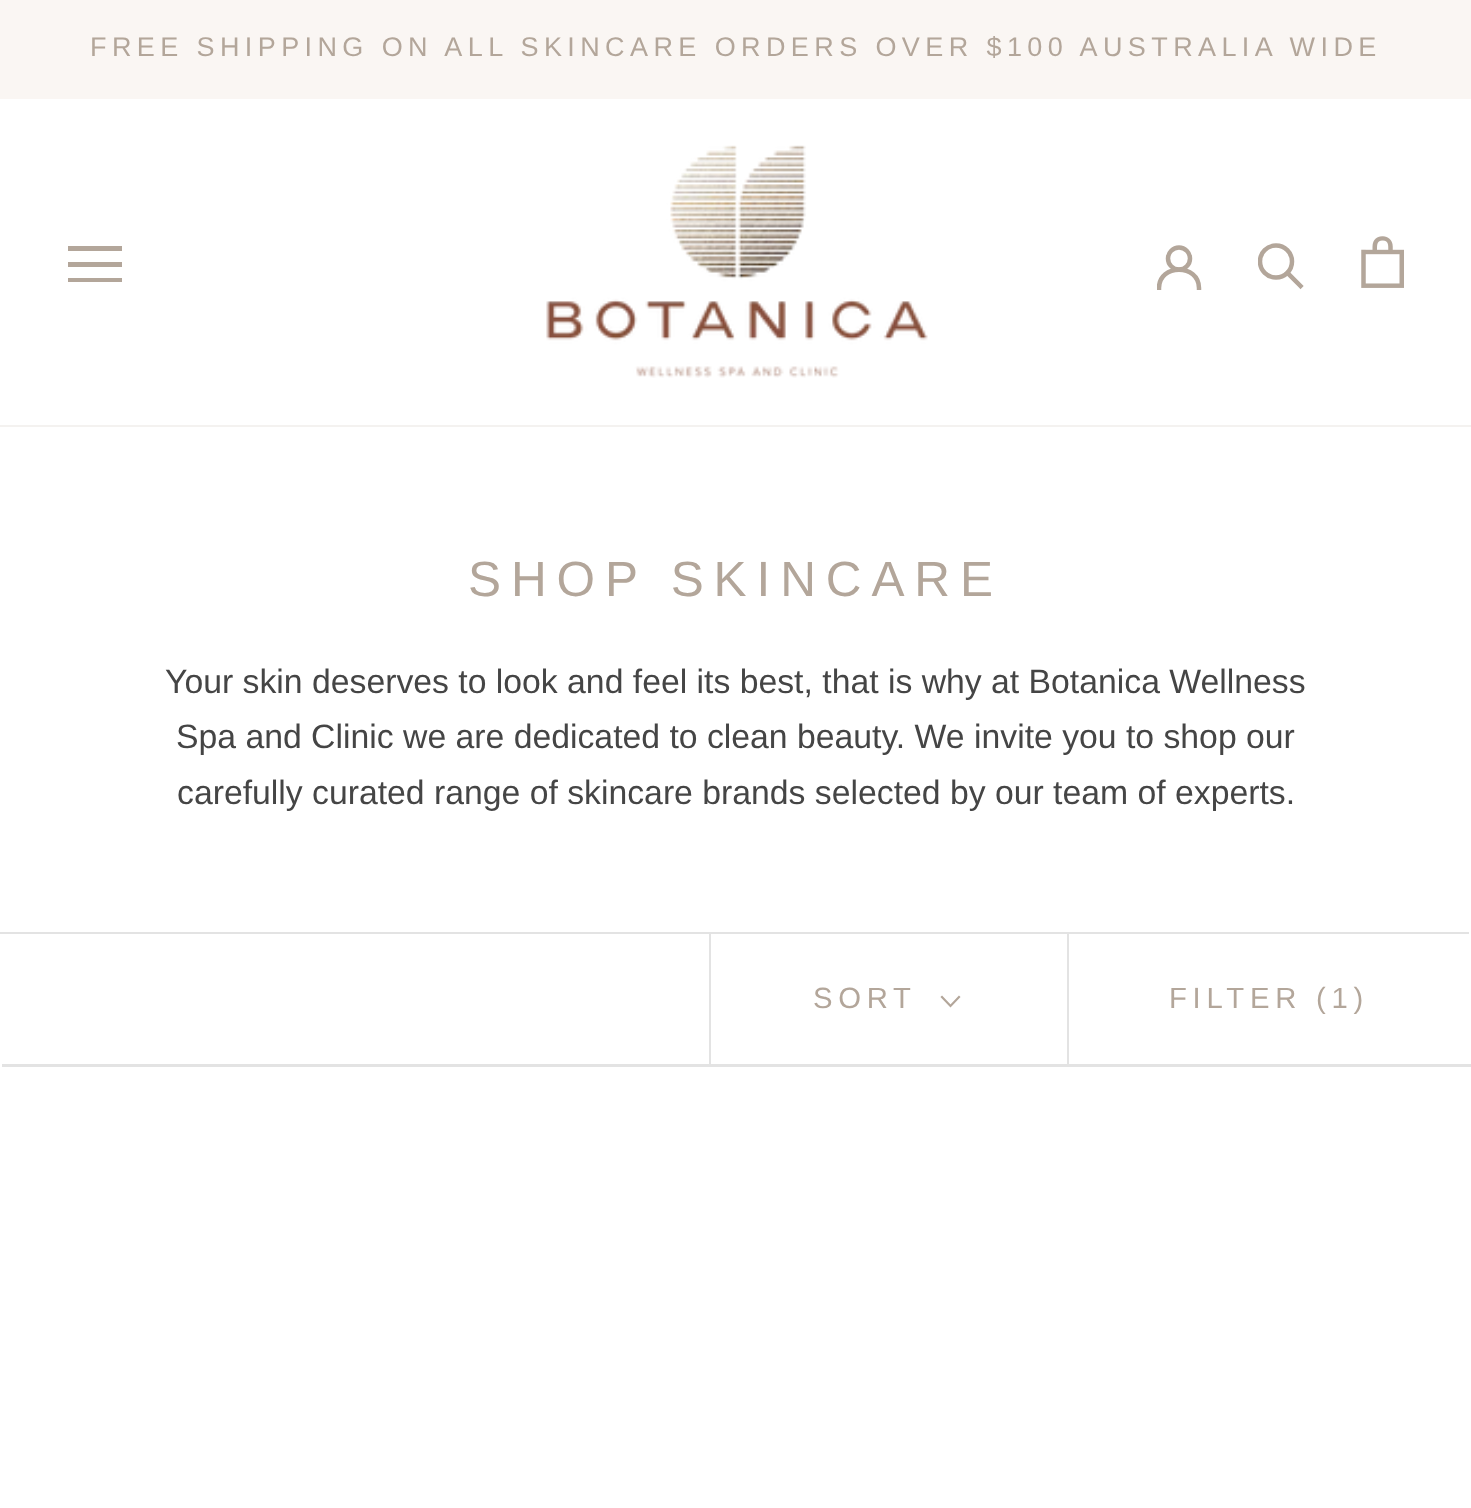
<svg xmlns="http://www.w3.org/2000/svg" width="1471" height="1508">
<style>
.a{font:27px Liberation Sans;letter-spacing:5.4px;fill:#b3a69a}
.b{font:49.5px Liberation Sans;letter-spacing:9.9px;fill:#b3a69a}
.c{font:33.75px Liberation Sans;fill:#454545}
.d{font:29.25px Liberation Sans;letter-spacing:5.75px;fill:#b3a69a}
</style>
<defs>
<clipPath id="clip1"><path d="M1157 245h45v45H1157z"/></clipPath>
<clipPath id="clip2"><path d="M1258 243h47v47H1258z"/></clipPath>
</defs>
<rect width="100%" height="100%" fill="#fff"/>
<path fill="#faf6f3" d="M0 0h1471v99H0z"/>
<path fill="#f4f2f0" d="M0 425h1471v2H0z"/>
<path fill="#b3a69a" d="M68 282v-4h54v4zm0-20h54v5h-54zm0-16h54v5h-54z"/>
<image href="1.png" x="546" y="145" width="382" height="233"/>
<g clip-path="url(#clip1)">
<path fill="none" stroke="#b3a69a" stroke-width="4.5" stroke-linecap="square" d="M1159 288c0-24.5 40-24.5 40 0"/>
</g>
<circle fill="none" stroke="#b3a69a" stroke-width="4.5" cx="1179" cy="258.5" r="11"/>
<path fill="none" stroke="#b3a69a" stroke-width="4.5" stroke-linecap="square" d="M1300.5 286l-13-13"/>
<g clip-path="url(#clip2)">
<circle fill="none" stroke="#b3a69a" stroke-width="4.5" cx="1276" cy="261.5" r="16"/>
</g>
<image href="2.png" x="1361" y="236" width="43" height="52"/>
<path fill="#e3e3e3" d="M-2 932v130h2v-128h1469v-2z"/>
<path fill="#e3e3e3" d="M2 1064v3h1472v-131h-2v128z"/>
<path fill="#e3e3e3" d="M709 934h2v130H709z"/>
<path fill="none" stroke="#b3a69a" stroke-width="2.2" stroke-linecap="square" d="M959 997l-8.5 9l-8.5-9"/>
<path fill="#e3e3e3" d="M1067 934h2v130H1067z"/>
<text class="a" x="90" y="56">FREE SHIPPING ON ALL SKINCARE ORDERS OVER $100 AUSTRALIA WIDE</text>
<text class="b" x="468" y="596">SHOP SKINCARE</text>
<text class="c" x="165" y="693">Your skin deserves to look and feel its best, that is why at Botanica Wellness</text>
<text class="c" x="176" y="748">Spa and Clinic we are dedicated to clean beauty. We invite you to shop our</text>
<text class="c" x="177" y="804">carefully curated range of skincare brands selected by our team of experts.</text>
<text class="d" x="813" y="1008">SORT</text>
<text class="d" x="1169" y="1008">FILTER (1)</text>
</svg>
